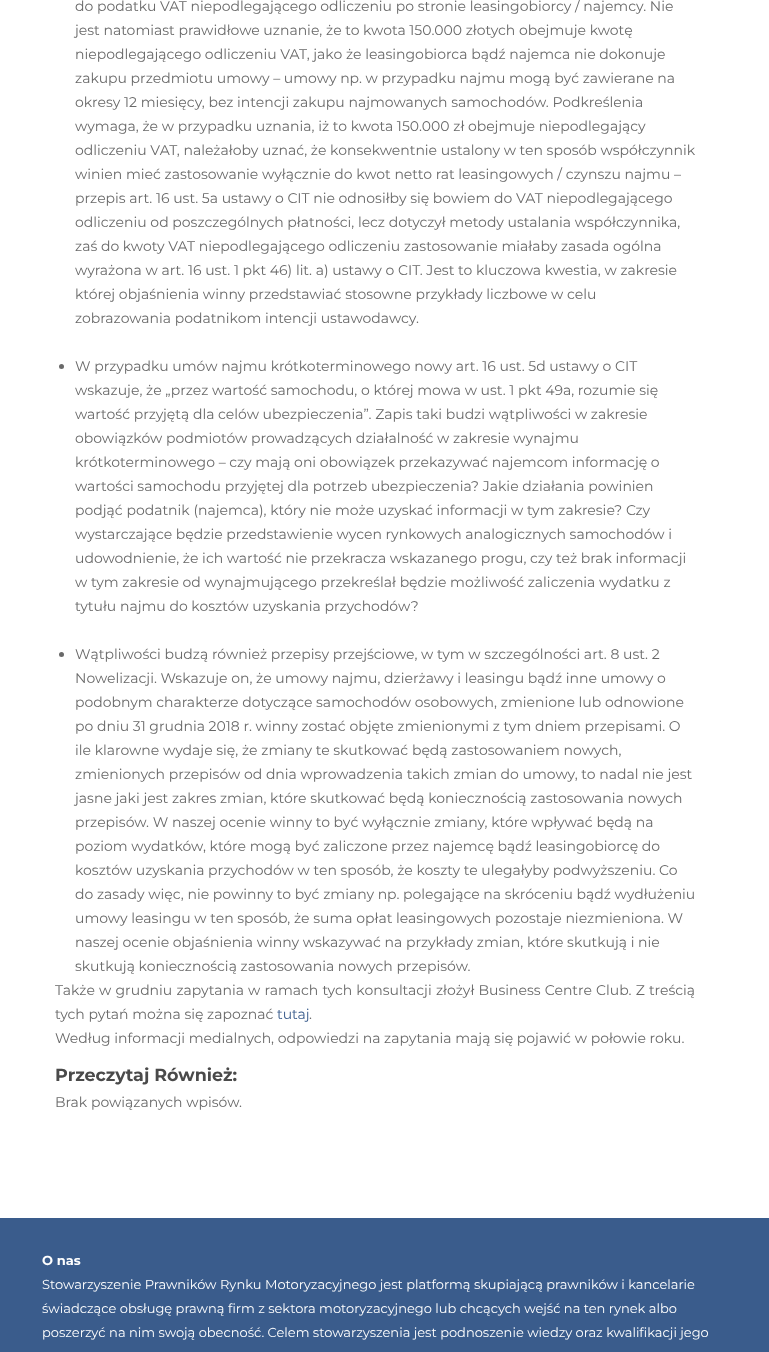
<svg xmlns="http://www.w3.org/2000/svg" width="769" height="1352">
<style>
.a{font:14px Montserrat;fill:#696969}
.b{font:14px Montserrat;fill:#3a5c8c}
.c{font:bold 17.5px Montserrat;fill:#4a4a4a}
.d{font:bold 13px Montserrat;fill:#fff}
.e{font:13px Montserrat;fill:#fff}
</style>
<rect width="100%" height="100%" fill="#fff"/>
<circle fill="#696969" cx="61.5" cy="366.5" r="2.5"/>
<circle fill="#696969" cx="61.5" cy="654.5" r="2.5"/>
<path fill="#3a5c8c" d="M0 1218h769v134H0z"/>
<text class="a" x="75" y="11">do podatku VAT niepodlegającego odliczeniu po stronie leasingobiorcy / najemcy. Nie</text>
<text class="a" x="75" y="35">jest natomiast prawidłowe uznanie, że to kwota 150.000 złotych obejmuje kwotę</text>
<text class="a" x="75" y="59">niepodlegającego odliczeniu VAT, jako że leasingobiorca bądź najemca nie dokonuje</text>
<text class="a" x="75" y="83">zakupu przedmiotu umowy – umowy np. w przypadku najmu mogą być zawierane na</text>
<text class="a" x="75" y="107">okresy 12 miesięcy, bez intencji zakupu najmowanych samochodów. Podkreślenia</text>
<text class="a" x="75" y="131">wymaga, że w przypadku uznania, iż to kwota 150.000 zł obejmuje niepodlegający</text>
<text class="a" x="75" y="155">odliczeniu VAT, należałoby uznać, że konsekwentnie ustalony w ten sposób współczynnik</text>
<text class="a" x="75" y="179">winien mieć zastosowanie wyłącznie do kwot netto rat leasingowych / czynszu najmu –</text>
<text class="a" x="75" y="203">przepis art. 16 ust. 5a ustawy o CIT nie odnosiłby się bowiem do VAT niepodlegającego</text>
<text class="a" x="75" y="227">odliczeniu od poszczególnych płatności, lecz dotyczył metody ustalania współczynnika,</text>
<text class="a" x="75" y="251">zaś do kwoty VAT niepodlegającego odliczeniu zastosowanie miałaby zasada ogólna</text>
<text class="a" x="75" y="275">wyrażona w art. 16 ust. 1 pkt 46) lit. a) ustawy o CIT. Jest to kluczowa kwestia, w zakresie</text>
<text class="a" x="75" y="299">której objaśnienia winny przedstawiać stosowne przykłady liczbowe w celu</text>
<text class="a" x="75" y="323">zobrazowania podatnikom intencji ustawodawcy.</text>
<text class="a" x="75" y="371">W przypadku umów najmu krótkoterminowego nowy art. 16 ust. 5d ustawy o CIT</text>
<text class="a" x="75" y="395">wskazuje, że „przez wartość samochodu, o której mowa w ust. 1 pkt 49a, rozumie się</text>
<text class="a" x="75" y="419">wartość przyjętą dla celów ubezpieczenia”. Zapis taki budzi wątpliwości w zakresie</text>
<text class="a" x="75" y="443">obowiązków podmiotów prowadzących działalność w zakresie wynajmu</text>
<text class="a" x="75" y="467">krótkoterminowego – czy mają oni obowiązek przekazywać najemcom informację o</text>
<text class="a" x="75" y="491">wartości samochodu przyjętej dla potrzeb ubezpieczenia? Jakie działania powinien</text>
<text class="a" x="75" y="515">podjąć podatnik (najemca), który nie może uzyskać informacji w tym zakresie? Czy</text>
<text class="a" x="75" y="539">wystarczające będzie przedstawienie wycen rynkowych analogicznych samochodów i</text>
<text class="a" x="75" y="563">udowodnienie, że ich wartość nie przekracza wskazanego progu, czy też brak informacji</text>
<text class="a" x="75" y="587">w tym zakresie od wynajmującego przekreślał będzie możliwość zaliczenia wydatku z</text>
<text class="a" x="75" y="611">tytułu najmu do kosztów uzyskania przychodów?</text>
<text class="a" x="75" y="659">Wątpliwości budzą również przepisy przejściowe, w tym w szczególności art. 8 ust. 2</text>
<text class="a" x="75" y="683">Nowelizacji. Wskazuje on, że umowy najmu, dzierżawy i leasingu bądź inne umowy o</text>
<text class="a" x="75" y="707">podobnym charakterze dotyczące samochodów osobowych, zmienione lub odnowione</text>
<text class="a" x="75" y="731">po dniu 31 grudnia 2018 r. winny zostać objęte zmienionymi z tym dniem przepisami. O</text>
<text class="a" x="75" y="755">ile klarowne wydaje się, że zmiany te skutkować będą zastosowaniem nowych,</text>
<text class="a" x="75" y="779">zmienionych przepisów od dnia wprowadzenia takich zmian do umowy, to nadal nie jest</text>
<text class="a" x="75" y="803">jasne jaki jest zakres zmian, które skutkować będą koniecznością zastosowania nowych</text>
<text class="a" x="75" y="827">przepisów. W naszej ocenie winny to być wyłącznie zmiany, które wpływać będą na</text>
<text class="a" x="75" y="851">poziom wydatków, które mogą być zaliczone przez najemcę bądź leasingobiorcę do</text>
<text class="a" x="75" y="875">kosztów uzyskania przychodów w ten sposób, że koszty te ulegałyby podwyższeniu. Co</text>
<text class="a" x="75" y="899">do zasady więc, nie powinny to być zmiany np. polegające na skróceniu bądź wydłużeniu</text>
<text class="a" x="75" y="923">umowy leasingu w ten sposób, że suma opłat leasingowych pozostaje niezmieniona. W</text>
<text class="a" x="75" y="947">naszej ocenie objaśnienia winny wskazywać na przykłady zmian, które skutkują i nie</text>
<text class="a" x="75" y="971">skutkują koniecznością zastosowania nowych przepisów.</text>
<text class="a" x="55" y="995" word-spacing="0.5">Także w grudniu zapytania w ramach tych konsultacji złożył Business Centre Club. Z treścią</text>
<text class="a" x="55" y="1019">tych pytań można się zapoznać</text>
<text class="b" x="277" y="1019">tutaj</text>
<text class="a" x="309" y="1019">.</text>
<text class="a" x="55" y="1043">Według informacji medialnych, odpowiedzi na zapytania mają się pojawić w połowie roku.</text>
<text class="c" x="55" y="1081">Przeczytaj Również:</text>
<text class="a" x="55" y="1107">Brak powiązanych wpisów.</text>
<text class="d" x="42" y="1265">O nas</text>
<text class="e" x="42" y="1289">Stowarzyszenie Prawników Rynku Motoryzacyjnego jest platformą skupiającą prawników i kancelarie</text>
<text class="e" x="42" y="1313">świadczące obsługę prawną firm z sektora motoryzacyjnego lub chcących wejść na ten rynek albo</text>
<text class="e" x="42" y="1337">poszerzyć na nim swoją obecność. Celem stowarzyszenia jest podnoszenie wiedzy oraz kwalifikacji jego</text>
</svg>
